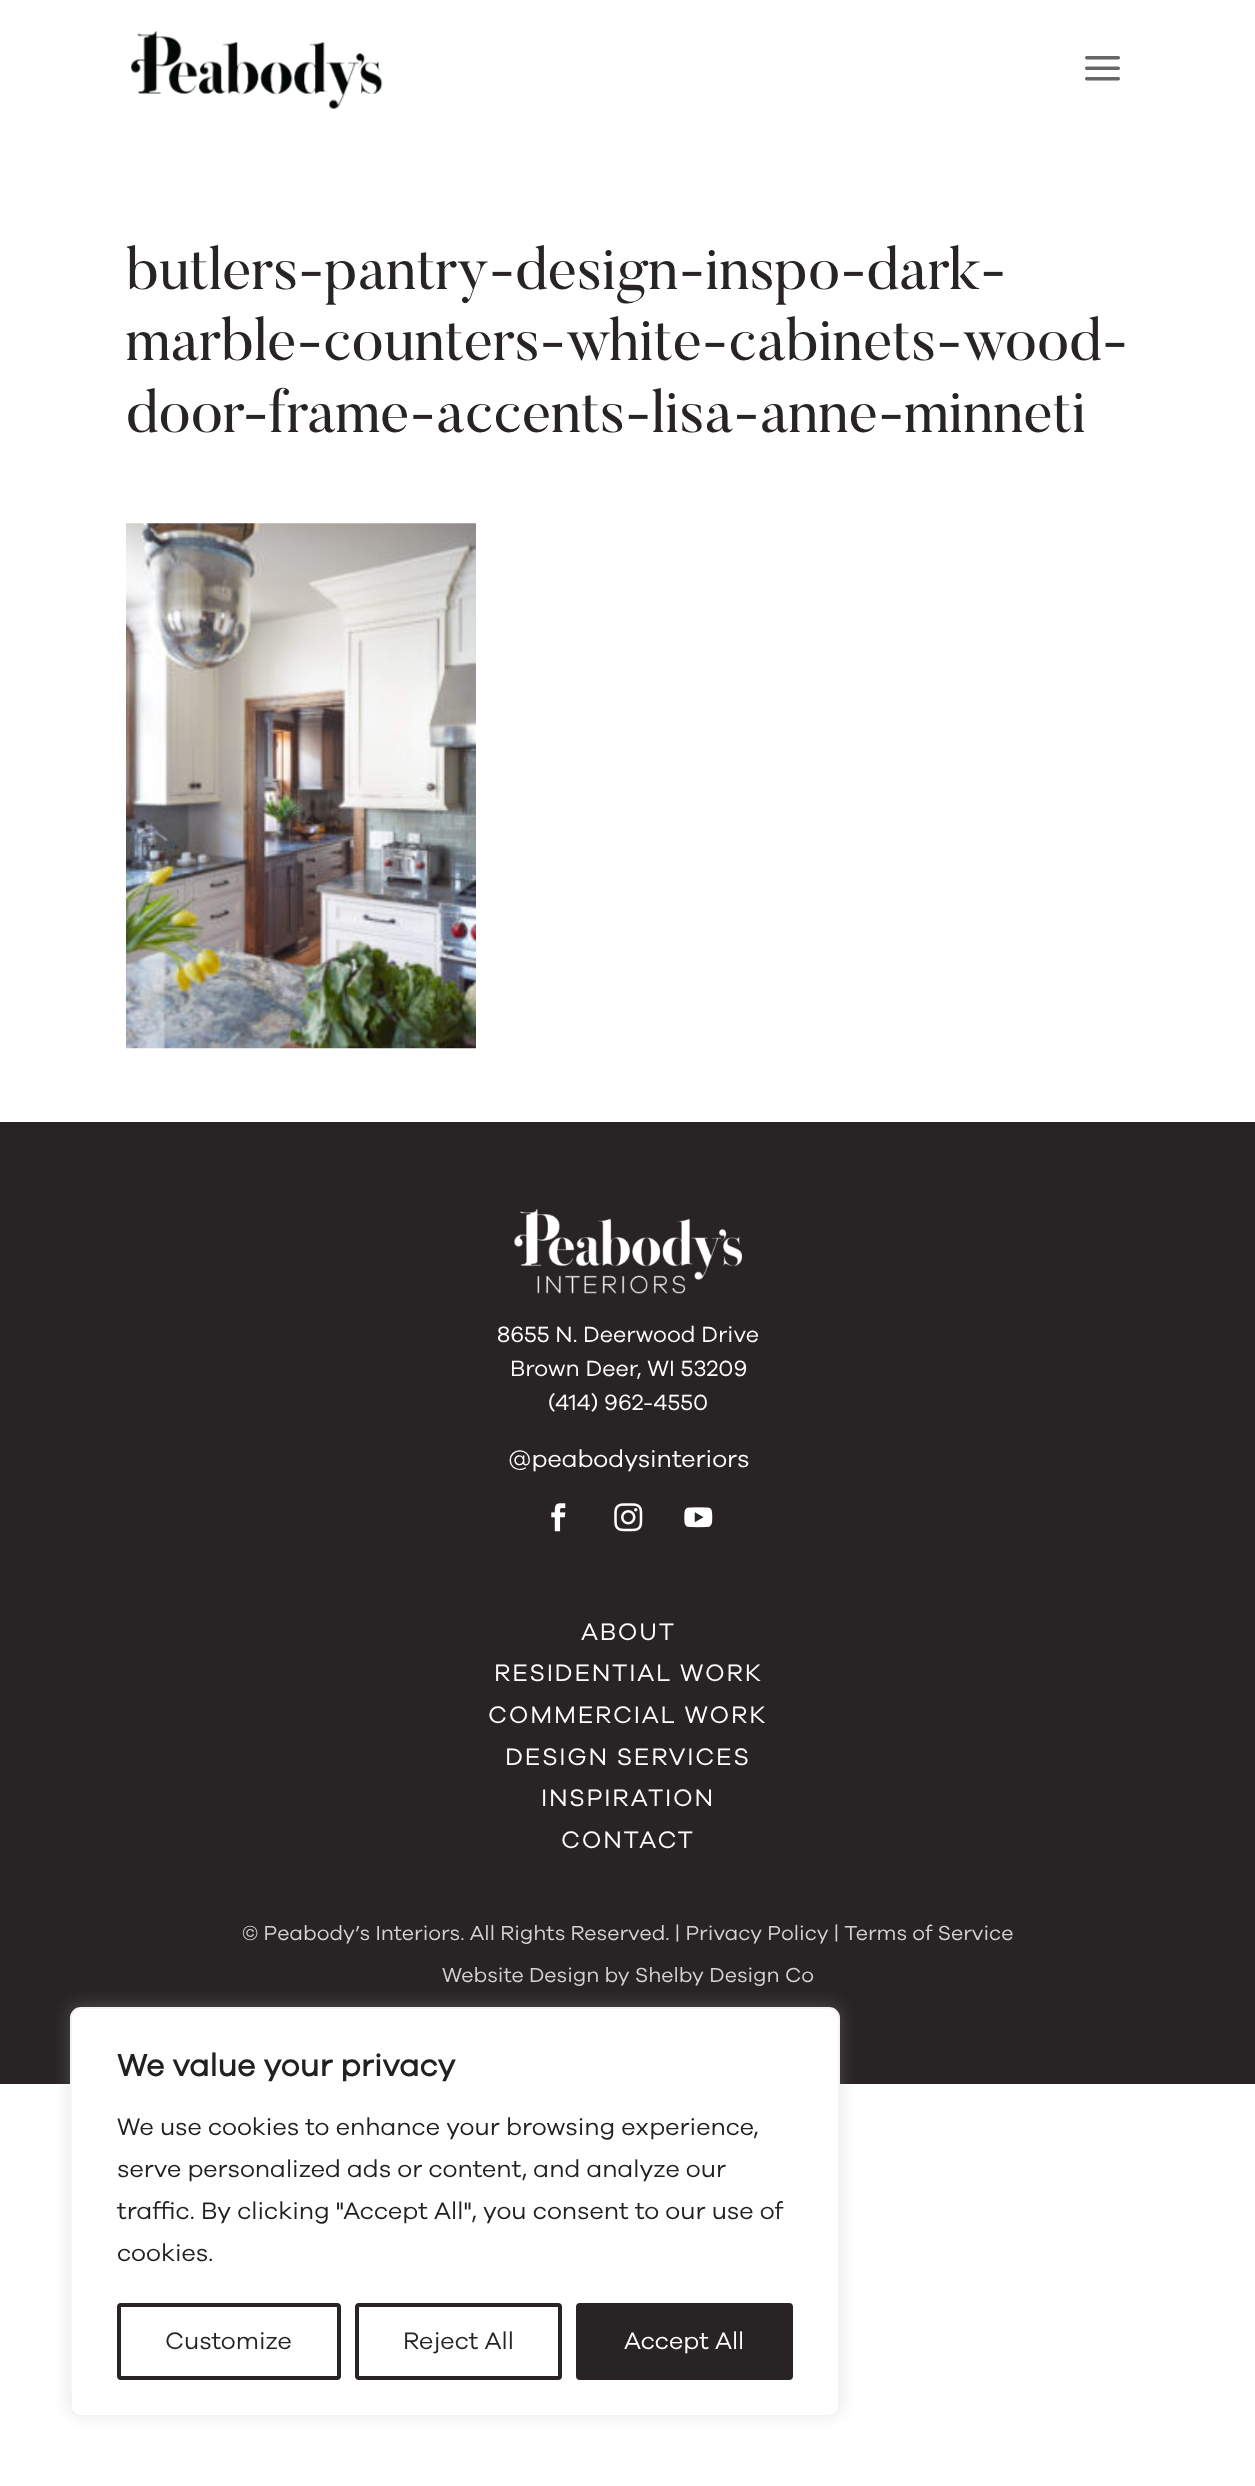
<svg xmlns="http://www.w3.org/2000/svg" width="1255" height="2486">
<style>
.a{font:59.5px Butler;fill:#282425}
.b{font:22.75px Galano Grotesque;fill:#fff}
.c{font:24.5px Galano Grotesque;fill:#fff}
.d{font:24.5px Galano Grotesque;letter-spacing:1.75px;fill:#fff}
.e{font:21px Galano Grotesque;fill:#d4d3d3}
.f{font:bold 31.5px Galano Grotesque;fill:#212121}
.g{font:24.5px Galano Grotesque;fill:#212121}
.h{font:24.5px Galano Grotesque;fill:#282425}
</style>
<rect width="100%" height="100%" fill="#fff"/>
<image href="1.png" x="131" y="31" width="252" height="78"/>
<image href="2.png" x="1085" y="56" width="35" height="25"/>
<image href="3.png" x="126" y="523" width="350" height="526"/>
<path fill="#282425" d="M0 1122h1255v962H0z"/>
<image href="4.png" x="514" y="1209" width="228" height="85"/>
<image href="5.png" x="551" y="1503" width="15" height="29"/>
<image href="6.png" x="614" y="1503" width="29" height="29"/>
<image href="7.png" x="684" y="1507" width="29" height="21"/>
<rect fill="#acabab4d" filter="blur(9px)" x="70" y="2006" width="770" height="409" rx="11"/>
<rect fill="#fff" stroke="#f4f4f4" stroke-width="2" x="71" y="2008" width="768" height="408" rx="10"/>
<rect fill="none" stroke="#282425" stroke-width="4" x="119" y="2305" width="220" height="73" rx="2"/>
<rect fill="none" stroke="#282425" stroke-width="4" x="357" y="2305" width="203" height="73" rx="2"/>
<rect fill="#282425" stroke="#282425" stroke-width="4" x="578" y="2305" width="213" height="73" rx="2"/>
<text class="a" x="126" y="289">butlers-pantry-design-inspo-dark-</text>
<text class="a" x="126" y="360">marble-counters-white-cabinets-wood-</text>
<text class="a" x="126" y="432">door-frame-accents-lisa-anne-minneti</text>
<text class="b" x="497" y="1342">8655 N. Deerwood Drive</text>
<text class="b" x="510" y="1376">Brown Deer, WI 53209</text>
<text class="b" x="548" y="1410">(414) 962-4550</text>
<text class="c" x="508" y="1467">@peabodysinteriors</text>
<text class="d" x="581" y="1640">ABOUT</text>
<text class="d" x="494" y="1681">RESIDENTIAL WORK</text>
<text class="d" x="488" y="1723">COMMERCIAL WORK</text>
<text class="d" x="505" y="1765">DESIGN SERVICES</text>
<text class="d" x="541" y="1806">INSPIRATION</text>
<text class="d" x="561" y="1848">CONTACT</text>
<text class="e" x="242" y="1940">© Peabody’s Interiors. All Rights Reserved. | Privacy Policy | Terms of Service</text>
<text class="e" x="442" y="1982">Website Design by Shelby Design Co</text>
<text class="f" x="117" y="2076">We value your privacy</text>
<text class="g" x="117" y="2135">We use cookies to enhance your browsing experience,</text>
<text class="g" x="117" y="2177">serve personalized ads or content, and analyze our</text>
<text class="g" x="117" y="2219">traffic. By clicking "Accept All", you consent to our use of</text>
<text class="g" x="117" y="2261">cookies.</text>
<text class="h" x="165" y="2349">Customize</text>
<text class="h" x="403" y="2349">Reject All</text>
<text class="c" x="624" y="2349">Accept All</text>
</svg>
